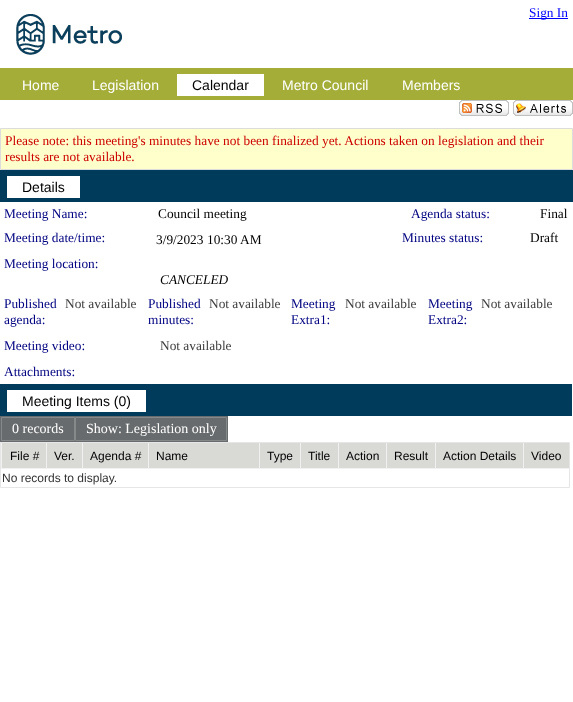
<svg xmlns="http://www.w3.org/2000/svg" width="573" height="702">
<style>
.a{font:13.35px Liberation Serif;fill:#00f}
.b{font:14px Liberation Sans;fill:#fff}
.c{font:14px Liberation Sans;fill:#000}
.d{font:13.35px Liberation Serif;fill:#c00}
.e{font:13.35px Liberation Serif;fill:#000080}
.f{font:13.35px Liberation Serif;fill:#000}
.g{font:italic 13.35px Liberation Serif;fill:#000}
.h{font:13.35px Liberation Serif;fill:#3d3d3d}
.i{font:14px Liberation Serif;fill:#fff}
.j{font:12px Liberation Sans;fill:#000}
.k{font:12px Liberation Sans;fill:#333}
</style>
<rect width="100%" height="100%" fill="#fff"/>
<image href="1.png" x="16" y="14" width="106" height="41"/>
<path fill="#00f" d="M529 18h39v1H529z"/>
<path fill="#a3ad38" d="M0 68h573v32H0z"/>
<path fill="#fff" d="M177 74h87v22H177z"/>
<image href="2.png" x="459" y="100" width="50" height="16"/>
<image href="3.png" x="513" y="100" width="60" height="16"/>
<path fill="#ffc" stroke="#dcdcdc" d="M0.5 128.5h572v41H0.5z"/>
<path fill="#003b5c" d="M0 170h573v32H0z"/>
<path fill="#fff" d="M7 176h73v22H7z"/>
<path fill="#003b5c" d="M0 384h572v32H0z"/>
<path fill="#fff" d="M7 390h139v22H7z"/>
<path fill="#686b6d" d="M0 416h228v26H0z"/>
<path fill="none" stroke="#86898a" d="M1.5 417.5h73v23H1.5z"/>
<path fill="none" stroke="#86898a" d="M75.5 417.5h151v23H75.5z"/>
<path fill="none" stroke="#e6e6e6" d="M0.5 442.5h569v45H0.5z"/>
<path fill="#d9d9d6" d="M2 443h44v25H2z"/>
<path fill="#f1f1f1" d="M1 468h568v1H1z"/>
<path fill="#f1f1f1" d="M1 443h1v26H1z"/>
<path fill="#d9d9d6" d="M47 443h35v25H47z"/>
<path fill="#f1f1f1" d="M46 443h1v26H46z"/>
<path fill="#d9d9d6" d="M83 443h65v25H83z"/>
<path fill="#f1f1f1" d="M82 443h1v26H82z"/>
<path fill="#d9d9d6" d="M149 443h110v25H149z"/>
<path fill="#f1f1f1" d="M148 443h1v26H148z"/>
<path fill="#d9d9d6" d="M260 443h40v25H260z"/>
<path fill="#f1f1f1" d="M259 443h1v26H259z"/>
<path fill="#d9d9d6" d="M301 443h37v25H301z"/>
<path fill="#f1f1f1" d="M300 443h1v26H300z"/>
<path fill="#d9d9d6" d="M339 443h47v25H339z"/>
<path fill="#f1f1f1" d="M338 443h1v26H338z"/>
<path fill="#d9d9d6" d="M387 443h48v25H387z"/>
<path fill="#f1f1f1" d="M386 443h1v26H386z"/>
<path fill="#d9d9d6" d="M436 443h87v25H436z"/>
<path fill="#f1f1f1" d="M435 443h1v26H435z"/>
<path fill="#d9d9d6" d="M524 443h45v25H524z"/>
<path fill="#f1f1f1" d="M523 443h1v26H523z"/>
<text class="a" x="529" y="17">Sign In</text>
<text class="b" x="22" y="90">Home</text>
<text class="b" x="92" y="90">Legislation</text>
<text class="c" x="192" y="90">Calendar</text>
<text class="b" x="282" y="90">Metro Council</text>
<text class="b" x="402" y="90">Members</text>
<text class="d" x="5" y="145">Please note: this meeting's minutes have not been finalized yet. Actions taken on legislation and their</text>
<text class="d" x="5" y="161">results are not available.</text>
<text class="c" x="22" y="192">Details</text>
<text class="e" x="4" y="218">Meeting Name:</text>
<text class="f" x="158" y="218">Council meeting</text>
<text class="e" x="411" y="218">Agenda status:</text>
<text class="f" x="540" y="218">Final</text>
<text class="e" x="4" y="242">Meeting date/time:</text>
<text class="f" x="156" y="244">3/9/2023</text>
<text class="f" x="207" y="244">10:30 AM</text>
<text class="e" x="402" y="242">Minutes status:</text>
<text class="f" x="530" y="242">Draft</text>
<text class="e" x="4" y="268">Meeting location:</text>
<text class="g" x="160" y="284">CANCELED</text>
<text class="e" x="4" y="308">Published</text>
<text class="e" x="4" y="324">agenda:</text>
<text class="h" x="65" y="308">Not available</text>
<text class="e" x="148" y="308">Published</text>
<text class="e" x="148" y="324">minutes:</text>
<text class="h" x="209" y="308">Not available</text>
<text class="e" x="291" y="308">Meeting</text>
<text class="e" x="291" y="324">Extra1:</text>
<text class="h" x="345" y="308">Not available</text>
<text class="e" x="428" y="308">Meeting</text>
<text class="e" x="428" y="324">Extra2:</text>
<text class="h" x="481" y="308">Not available</text>
<text class="e" x="4" y="350">Meeting video:</text>
<text class="h" x="160" y="350">Not available</text>
<text class="e" x="4" y="376">Attachments:</text>
<text class="c" x="22" y="406">Meeting Items (0)</text>
<text class="i" x="12" y="433">0 records</text>
<text class="i" x="86" y="433">Show: Legislation only</text>
<text class="j" x="10" y="460">File #</text>
<text class="j" x="54" y="460">Ver.</text>
<text class="j" x="90" y="460">Agenda #</text>
<text class="j" x="156" y="460">Name</text>
<text class="j" x="267" y="460">Type</text>
<text class="j" x="308" y="460">Title</text>
<text class="j" x="346" y="460">Action</text>
<text class="j" x="394" y="460">Result</text>
<text class="j" x="443" y="460">Action Details</text>
<text class="j" x="531" y="460">Video</text>
<text class="k" x="2" y="482">No records to display.</text>
</svg>
